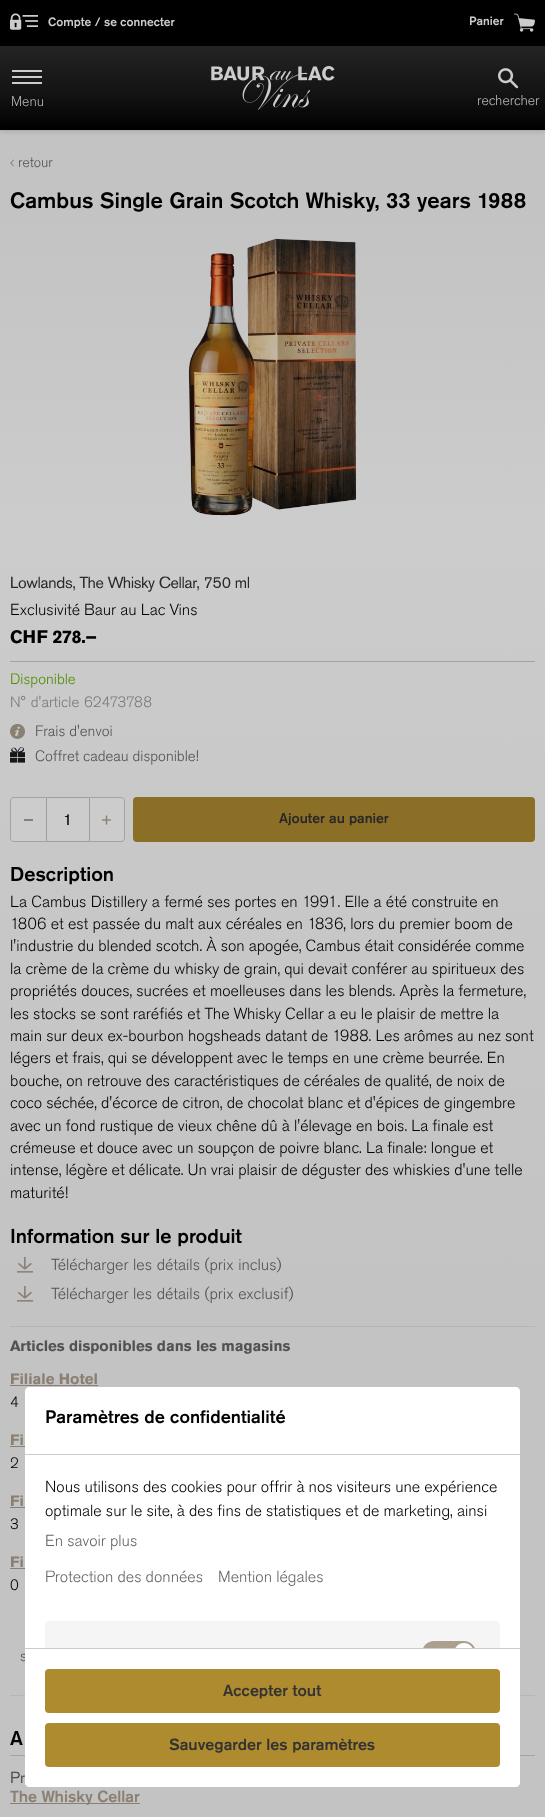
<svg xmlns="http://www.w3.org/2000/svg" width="545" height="1817">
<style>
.a{font:500 12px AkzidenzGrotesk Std;fill:#ccc}
.b{font:300 14px AkzidenzGrotesk Std;fill:#b5b5b5}
.c{font:300 14px AkzidenzGrotesk Std;fill:#525252}
.d{font:500 22px AkzidenzGrotesk Std;fill:#000}
.e{font:16px AkzidenzGrotesk Std;letter-spacing:-0.35px;fill:#292929}
.f{font:300 16px AkzidenzGrotesk Std;fill:#000}
.g{font:bold 18px AkzidenzGrotesk Std;letter-spacing:-0.25px;fill:#000}
.h{font:300 15px AkzidenzGrotesk Std;fill:#4f8e00}
.i{font:300 15px AkzidenzGrotesk Std;fill:#7a7a7a}
.j{font:300 15px AkzidenzGrotesk Std;fill:#525252}
.k{font:16px AkzidenzGrotesk Std;fill:#000}
.l{font:500 14px AkzidenzGrotesk Std;fill:#292929}
.m{font:500 20px AkzidenzGrotesk Std;fill:#000}
.n{font:300 16px AkzidenzGrotesk Std;fill:#525252}
.o{font:bold 15px AkzidenzGrotesk Std;fill:#525252}
.p{font:bold 15px AkzidenzGrotesk Std;fill:#8a7f73}
.q{font:300 15px AkzidenzGrotesk Std;fill:#000}
.r{font:16px AkzidenzGrotesk Std;fill:#525252}
.s{font:500 16px AkzidenzGrotesk Std;fill:#8a7f73}
.t{font:500 18px AkzidenzGrotesk Std;fill:#000}
.u{font:300 16px AkzidenzGrotesk Std;fill:#666}
.v{font:500 16px AkzidenzGrotesk Std;fill:#333}
</style>
<defs>
<linearGradient id="g1" gradientUnits="userSpaceOnUse" x1="272" y1="0" x2="273" y2="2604"><stop offset="0.08" stop-color="#c3c3c3"/><stop offset="0.2" stop-color="#ccc"/><stop offset="0.5" stop-color="#c3c3c3"/><stop offset="1" stop-color="#c3c3c3"/></linearGradient>
<linearGradient id="g2" gradientUnits="userSpaceOnUse" x1="273" y1="46" x2="273" y2="130"><stop offset="0" stop-color="#242424"/><stop offset="0.6" stop-color="#121212"/><stop offset="1" stop-color="#000"/></linearGradient>
</defs>
<rect width="100%" height="100%" fill="#fff"/>
<path fill="#000" d="M0 0h545v46H0z"/>
<image href="1.png" x="10" y="13" width="28" height="17"/>
<image href="2.png" x="514" y="13" width="21" height="19"/>
<path fill="url(#g1)" d="M0 130h545v1687H0z"/>
<rect fill="#0000004d" filter="blur(3px)" x="-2" y="120" width="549" height="9" rx="4.5"/>
<path fill="url(#g2)" d="M0 46h545v84H0z"/>
<path fill="#ccc" d="M12 70h30v2H12z"/>
<path fill="#ccc" d="M12 76h30v2H12z"/>
<path fill="#ccc" d="M12 82h30v2H12z"/>
<image href="3.png" x="211" y="66" width="124" height="44"/>
<image href="4.png" x="498" y="68" width="21" height="21"/>
<image href="5.png" x="10" y="159" width="4" height="8"/>
<image href="6.png" x="188" y="238" width="169" height="278"/>
<path fill="#a3a3a3" d="M10 661h525v1H10z"/>
<image href="7.png" x="10" y="723" width="15" height="16"/>
<image href="8.png" x="10" y="747" width="15" height="16"/>
<path fill="#ccc" d="M14 797h32v45h-32c-2 0-4-2-4-4v-37c0-2 2-4 4-4z"/>
<path fill="#a3a3a3" fill-rule="evenodd" d="M14 797h32v45h-32c-2 0-4-2-4-4v-37c0-2 2-4 4-4zm0 1h32v43h-32c-2 0-3-1-3-3v-37c0-2 1-3 3-3z"/>
<path fill="#8a7f73" d="M24 819h9v2H24z"/>
<path fill="#ccc" stroke="#9e9e9e" d="M46.5 797.5h43v44H46.5z"/>
<path fill="#ccc" d="M90 797h31c2 0 4 2 4 4v37c0 2-2 4-4 4h-31z"/>
<path fill="#a3a3a3" fill-rule="evenodd" d="M90 797h31c2 0 4 2 4 4v37c0 2-2 4-4 4h-31zm0 1h31c2 0 3 1 3 3v37c0 2-1 3-3 3h-31z"/>
<image href="9.png" x="102" y="815" width="9" height="10"/>
<rect fill="#8c6f26" x="133" y="797" width="402" height="45" rx="4"/>
<image href="10.png" x="17" y="1257" width="16" height="16"/>
<image href="11.png" x="17" y="1286" width="16" height="16"/>
<path fill="#b6b6b6" d="M10 1326h525v1H10z"/>
<path fill="#b6b6b6" d="M10 1695h525v1H10z"/>
<path fill="#8a7f73" d="M10 1385h88v1H10z"/>
<path fill="#8a7f73" d="M10 1446h15v1H10z"/>
<path fill="#8a7f73" d="M10 1507h15v1H10z"/>
<path fill="#8a7f73" d="M10 1568h15v1H10z"/>
<path fill="#a3a3a3" d="M10 1755h525v1H10z"/>
<path fill="#8a7f73" d="M10 1803h130v1H10z"/>
<path fill="#fff" d="M29 1387h487c2 0 4 2 4 4v64h-495v-64c0-2 2-4 4-4z"/>
<path fill="#ccc" d="M25 1454h495v1H25z"/>
<path fill="#fff" d="M25 1455h495v193H25z"/>
<path fill="#f5f5f5" d="M49 1621h447c2 0 4 2 4 4v23h-455v-23c0-2 2-4 4-4z"/>
<path fill="#ac9f90" d="M434 1641h30c6.5 0 12 5.5 12 12v-5h-54v5c0-6.5 5.5-12 12-12z"/>
<path fill="#fff" d="M464 1643c5.5 0 10 4.5 10 10v-5h-20v5c0-5.5 4.5-10 10-10z"/>
<text class="a" x="48" y="26">Compte / se connecter</text>
<text class="a" x="469" y="25">Panier</text>
<text class="b" x="11" y="106">Menu</text>
<text class="b" x="477" y="105">rechercher</text>
<text class="c" x="18" y="167">retour</text>
<text class="d" x="10" y="208">Cambus Single Grain Scotch Whisky, 33 years 1988</text>
<text class="e" x="10" y="588">Lowlands, The Whisky Cellar, 750 ml</text>
<text class="f" x="10" y="615">Exclusivité Baur au Lac Vins</text>
<text class="g" x="10" y="643">CHF 278.–</text>
<text class="h" x="10" y="684">Disponible</text>
<text class="i" x="10" y="707" word-spacing="1">N° d'article 62473788</text>
<text class="j" x="35" y="736">Frais d'envoi</text>
<text class="j" x="35" y="761">Coffret cadeau disponible!</text>
<text class="k" x="63" y="825">1</text>
<text class="l" x="279" y="823">Ajouter au panier</text>
<text class="m" x="10" y="881">Description</text>
<text class="f" x="10" y="907" word-spacing="0.25">La Cambus Distillery a fermé ses portes en 1991. Elle a été construite en</text>
<text class="f" x="10" y="929" word-spacing="0.1">1806 et est passée du malt aux céréales en 1836, lors du premier boom de</text>
<text class="f" x="10" y="951">l'industrie du blended scotch. À son apogée, Cambus était considérée comme</text>
<text class="f" x="10" y="974">la crème de la crème du whisky de grain, qui devait conférer au spiritueux des</text>
<text class="f" x="10" y="996">propriétés douces, sucrées et moelleuses dans les blends. Après la fermeture,</text>
<text class="f" x="10" y="1019">les stocks se sont raréfiés et The Whisky Cellar a eu le plaisir de mettre la</text>
<text class="f" x="10" y="1041">main sur deux ex-bourbon hogsheads datant de 1988. Les arômes au nez sont</text>
<text class="f" x="10" y="1063">légers et frais, qui se développent avec le temps en une crème beurrée. En</text>
<text class="f" x="10" y="1086">bouche, on retrouve des caractéristiques de céréales de qualité, de noix de</text>
<text class="f" x="10" y="1108">coco séchée, d'écorce de citron, de chocolat blanc et d'épices de gingembre</text>
<text class="f" x="10" y="1131">avec un fond rustique de vieux chêne dû à l'élevage en bois. La finale est</text>
<text class="f" x="10" y="1153">crémeuse et douce avec un soupçon de poivre blanc. La finale: longue et</text>
<text class="f" x="10" y="1175">intense, légère et délicate. Un vrai plaisir de déguster des whiskies d'une telle</text>
<text class="f" x="10" y="1198">maturité!</text>
<text class="m" x="10" y="1243">Information sur le produit</text>
<text class="n" x="51" y="1270" word-spacing="0.5">Télécharger les détails (prix inclus)</text>
<text class="n" x="51" y="1299" word-spacing="0.5">Télécharger les détails (prix exclusif)</text>
<text class="o" x="10" y="1351">Articles disponibles dans les magasins</text>
<text class="p" x="10" y="1384">Filiale Hotel</text>
<text class="q" x="10" y="1407">4</text>
<text class="p" x="10" y="1445">Fi</text>
<text class="q" x="10" y="1468">2</text>
<text class="p" x="10" y="1506">Fi</text>
<text class="q" x="10" y="1529">3</text>
<text class="p" x="10" y="1567">Fi</text>
<text class="q" x="10" y="1590">0</text>
<text class="j" x="20" y="1661">s</text>
<text class="m" x="10" y="1745">A</text>
<text class="r" x="10" y="1783">Pr</text>
<text class="s" x="10" y="1802">The Whisky Cellar</text>
<text class="t" x="45" y="1423">Paramètres de confidentialité</text>
<text class="f" x="45" y="1492">Nous utilisons des cookies pour offrir à nos visiteurs une expérience</text>
<text class="f" x="45" y="1516">optimale sur le site, à des fins de statistiques et de marketing, ainsi</text>
<text class="u" x="45" y="1546">En savoir plus</text>
<text class="u" x="45" y="1582">Protection des données</text>
<text class="u" x="218" y="1582">Mention légales</text>
<path fill="#fff" d="M25 1648h495v135c0 2-2 4-4 4h-487c-2 0-4-2-4-4z"/>
<path fill="#ccc" d="M25 1648h495v1H25z"/>
<rect fill="#af8b2f" x="45" y="1669" width="455" height="44" rx="4"/>
<text class="v" x="223" y="1696">Accepter tout</text>
<rect fill="#af8b2f" x="45" y="1723" width="455" height="44" rx="4"/>
<text class="v" x="169" y="1750">Sauvegarder les paramètres</text>
</svg>
